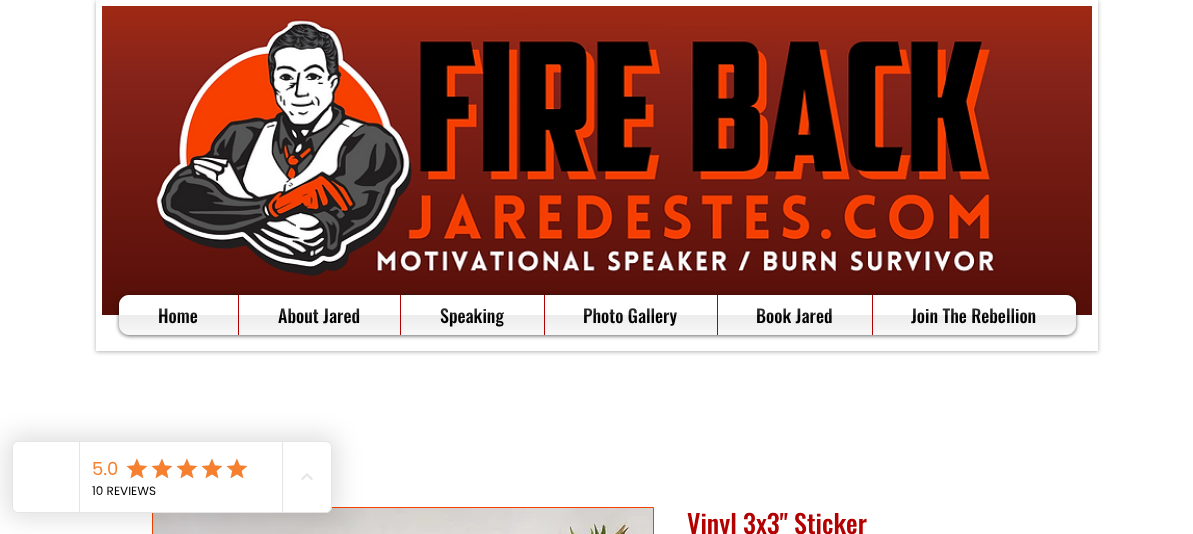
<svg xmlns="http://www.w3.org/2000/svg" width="1193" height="534">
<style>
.a{font:18px Poppins;fill:#f7802f}
.b{font:12px Poppins;fill:#000}
.c{font:500 18px Oswald;fill:#000}
.d{font:500 26px Oswald;fill:#b30000}
</style>
<defs>
<clipPath id="clip1"><path d="M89 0h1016v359h-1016zm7 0h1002v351h-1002z" clip-rule="evenodd"/></clipPath>
</defs>
<rect width="100%" height="100%" fill="#fff"/>
<path fill="none" stroke="#f73f00" d="M152.5 507.5h501v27H152.5z"/>
<image href="12.png" x="153" y="508" width="500" height="26"/>
<rect fill="#0000001f" filter="blur(12px)" x="6" y="435" width="332" height="84" rx="12"/>
<rect fill="#fff" stroke="#e5e5e5" x="12.5" y="441.5" width="319" height="71" rx="5.5"/>
<path fill="#fff" d="M19 442h61v70h-61c-3.5 0-6-2.5-6-6v-58c0-3.5 2.5-6 6-6z"/>
<path fill="#e5e5e5" d="M79 442h1v70H79z"/>
<path fill="#e5e5e5" d="M282 442h1v70H282z"/>
<image href="2.png" x="126" y="459" width="21" height="19"/>
<image href="1.png" x="126" y="458" width="22" height="21"/>
<image href="2.png" x="151" y="459" width="21" height="19"/>
<image href="1.png" x="151" y="458" width="22" height="21"/>
<image href="2.png" x="176" y="459" width="21" height="19"/>
<image href="1.png" x="176" y="458" width="22" height="21"/>
<image href="2.png" x="201" y="459" width="21" height="19"/>
<image href="1.png" x="201" y="458" width="22" height="21"/>
<image href="2.png" x="226" y="459" width="21" height="19"/>
<image href="1.png" x="226" y="458" width="22" height="21"/>
<image href="3.png" x="301" y="473" width="12" height="8"/>
<g clip-path="url(#clip1)">
<path fill="#0000004d" filter="blur(2px)" d="M96 1h1002v351H96z"/>
</g>
<image href="4.png" x="102" y="6" width="990" height="309"/>
<rect fill="#00000099" filter="blur(2px)" x="119" y="296" width="957" height="40" rx="10"/>
<image href="5.png" x="119" y="295" width="957" height="40"/>
<path fill="#fff" d="M129 295h109v40h-109c-5.5 0-10-4.5-10-10v-20c0-5.5 4.5-10 10-10z"/>
<path fill="#fff" d="M239 295h161v40H239z"/>
<path fill="#b30000" d="M238 295h1v40H238z"/>
<path fill="#fff" d="M401 295h143v40H401z"/>
<path fill="#b30000" d="M400 295h1v40H400z"/>
<path fill="#fff" d="M545 295h172v40H545z"/>
<path fill="#b30000" d="M544 295h1v40H544z"/>
<path fill="#fff" d="M718 295h154v40H718z"/>
<path fill="#b30000" d="M717 295h1v40H717z"/>
<path fill="#fff" d="M872 295h194c5.5 0 10 4.5 10 10v20c0 5.5-4.5 10-10 10h-194z"/>
<path fill="#b30000" d="M872 295h1v40H872z"/>
<text class="a" x="92" y="475">5.0</text>
<text class="b" x="92" y="495">10 REVIEWS</text>
<text class="c" x="158" y="323">Home</text>
<image href="6.png" x="119" y="295" width="119" height="40"/>
<text class="c" x="278" y="323">About Jared</text>
<image href="7.png" x="239" y="308" width="161" height="27"/>
<text class="c" x="440" y="323">Speaking</text>
<image href="8.png" x="401" y="308" width="143" height="27"/>
<text class="c" x="583" y="323">Photo Gallery</text>
<image href="9.png" x="545" y="308" width="172" height="27"/>
<text class="c" x="756" y="323">Book Jared</text>
<image href="10.png" x="718" y="308" width="154" height="27"/>
<text class="c" x="911" y="323">Join The Rebellion</text>
<image href="11.png" x="873" y="295" width="203" height="40"/>
<text class="d" x="687" y="534">Vinyl 3x3" Sticker</text>
</svg>
